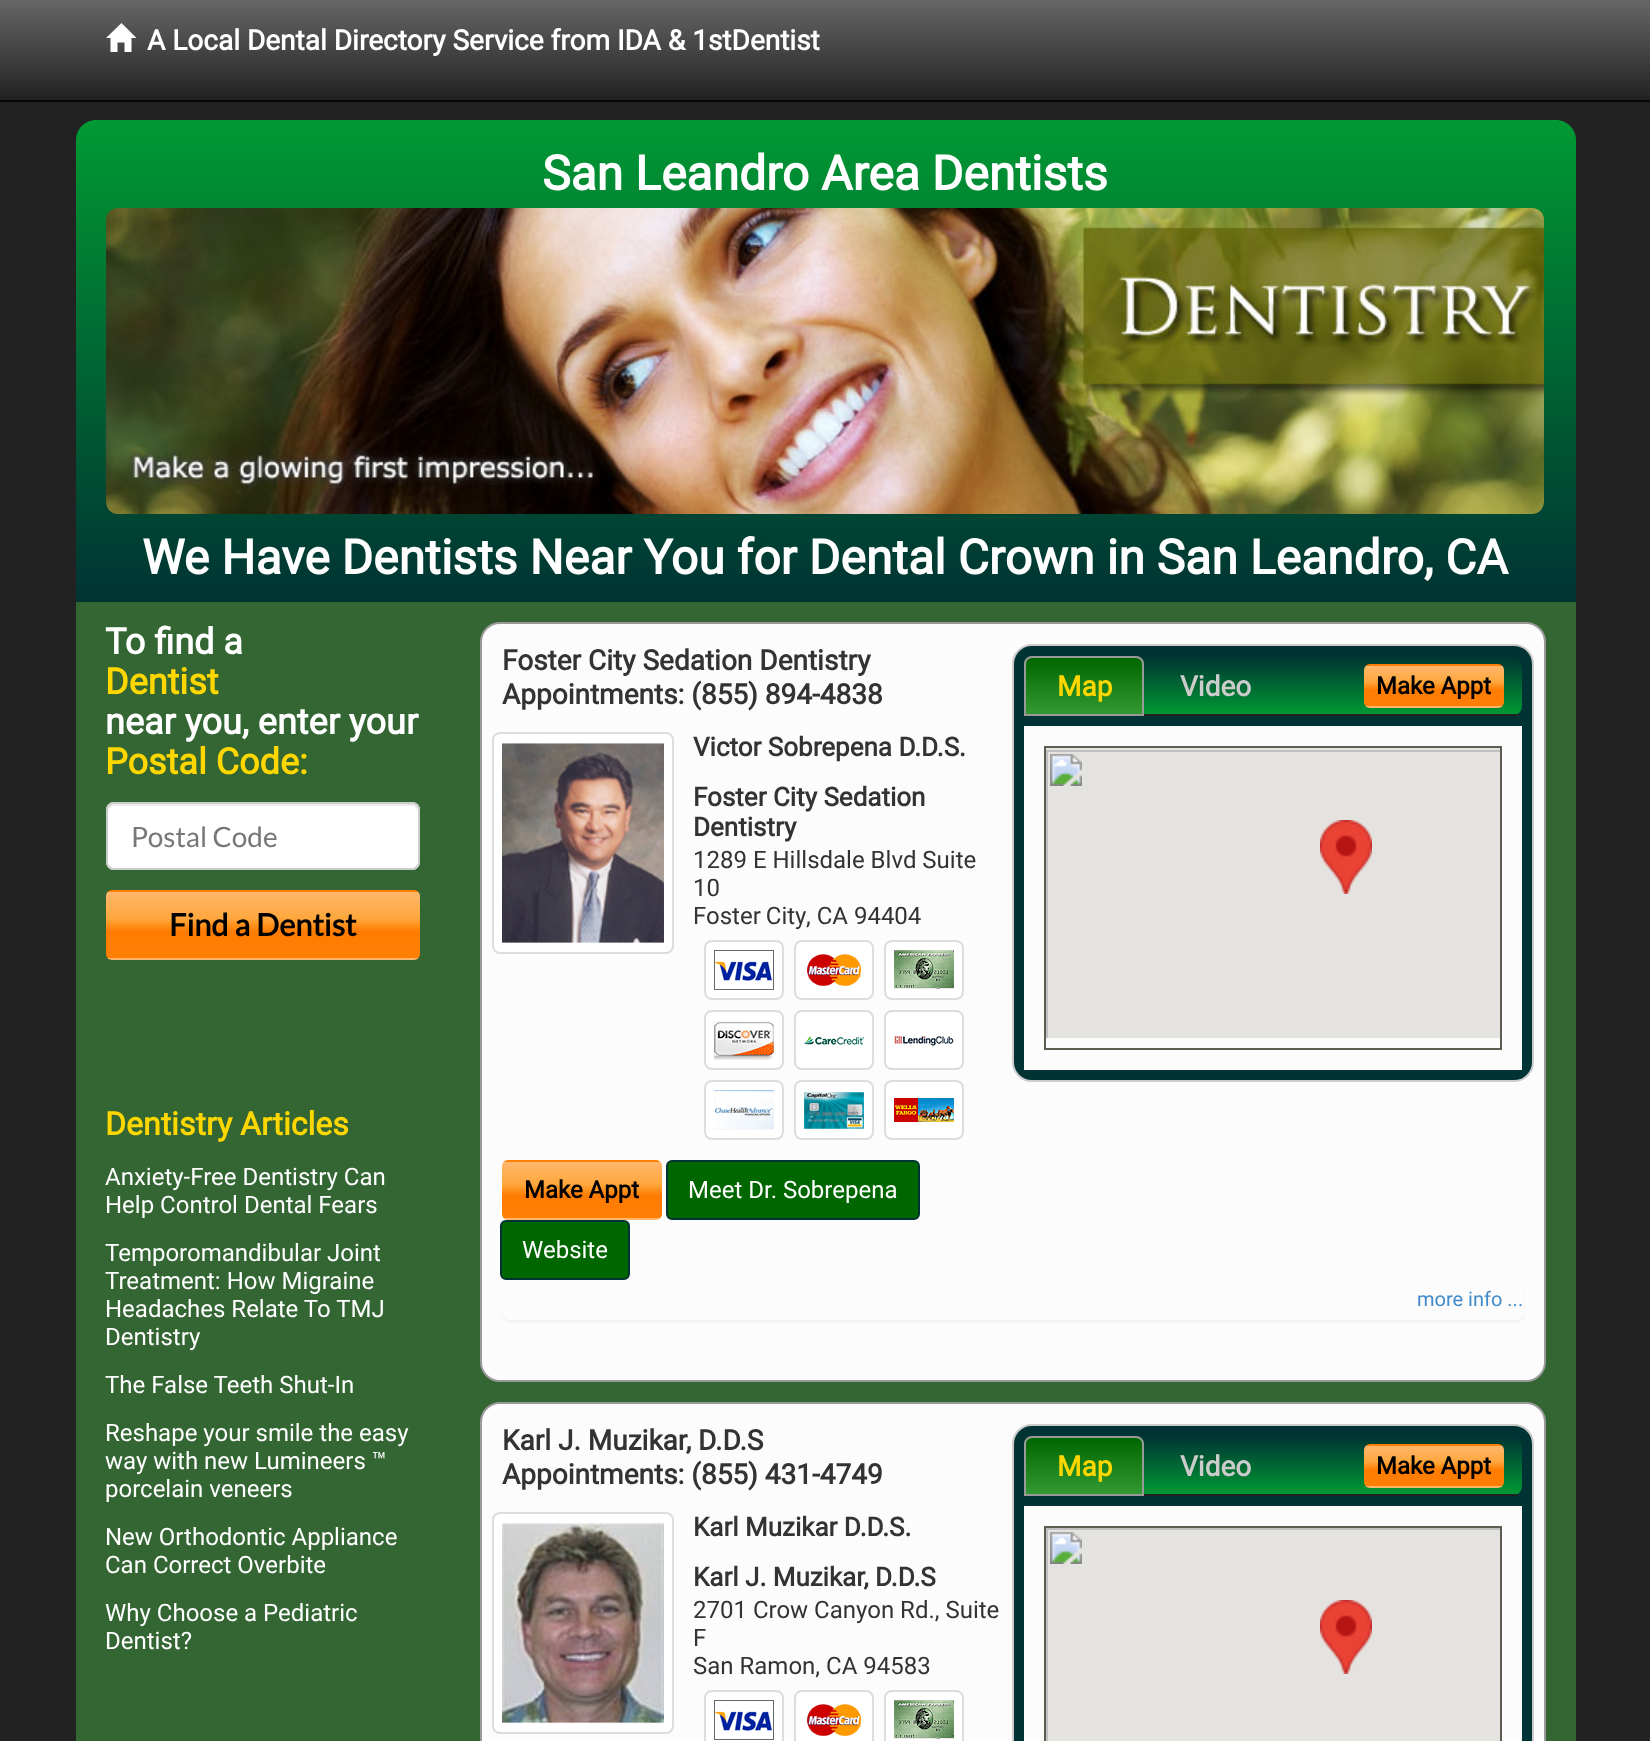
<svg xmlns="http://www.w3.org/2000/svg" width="1650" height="1741">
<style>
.a{font:bold 28px Roboto;fill:#fff}
.b{font:bold 48px Roboto;fill:#fff}
.c{font:bold 36px Roboto;fill:#fff}
.d{font:bold 36px Roboto;fill:#ffd700}
.e{font:28px Lato;fill:#777}
.f{font:bold 30.75px Lato;fill:#000}
.g{font:bold 32px Roboto;fill:#ffd700}
.h{font:24px Roboto;fill:#fff}
.i{font:bold 28px Roboto;fill:#333}
.j{font:bold 26px Roboto;fill:#333}
.k{font:24px Roboto;fill:#333}
.l{font:bold 24px Roboto;fill:#000}
.m{font:bold 28px Roboto;fill:#ffd700}
.n{font:bold 28px Roboto;fill:#ccc}
.o{font:20px Roboto;fill:#428bca}
</style>
<defs>
<linearGradient id="g1" gradientUnits="userSpaceOnUse" x1="825" y1="0" x2="825" y2="100"><stop offset="0" stop-color="#666"/><stop offset="1" stop-color="#222"/></linearGradient>
<linearGradient id="g2" gradientUnits="userSpaceOnUse" x1="826" y1="120" x2="826" y2="602"><stop offset="0" stop-color="#093"/><stop offset="1" stop-color="#033"/></linearGradient>
<clipPath id="clip1"><rect x="106" y="890" width="314" height="70" rx="6"/></clipPath>
<linearGradient id="g3" gradientUnits="userSpaceOnUse" x1="263" y1="826" x2="263" y2="892"><stop offset="0" stop-color="#ffb76b"/><stop offset="0.4" stop-color="#ffa73d"/><stop offset="0.6" stop-color="#ff7c00"/><stop offset="1" stop-color="#ff7f04"/></linearGradient>
<linearGradient id="g4" gradientUnits="userSpaceOnUse" x1="263" y1="892" x2="263" y2="958"><stop offset="0" stop-color="#ffb76b"/><stop offset="0.4" stop-color="#ffa73d"/><stop offset="0.6" stop-color="#ff7c00"/><stop offset="1" stop-color="#ff7f04"/></linearGradient>
<linearGradient id="g5" gradientUnits="userSpaceOnUse" x1="263" y1="958" x2="263" y2="1024"><stop offset="0" stop-color="#ffb76b"/><stop offset="0.4" stop-color="#ffa73d"/><stop offset="0.6" stop-color="#ff7c00"/><stop offset="1" stop-color="#ff7f04"/></linearGradient>
<clipPath id="clip2"><rect x="502" y="1160" width="160" height="60" rx="6"/></clipPath>
<linearGradient id="g6" gradientUnits="userSpaceOnUse" x1="582" y1="1106" x2="582" y2="1162"><stop offset="0" stop-color="#ffb76b"/><stop offset="0.4" stop-color="#ffa73d"/><stop offset="0.6" stop-color="#ff7c00"/><stop offset="1" stop-color="#ff7f04"/></linearGradient>
<linearGradient id="g7" gradientUnits="userSpaceOnUse" x1="582" y1="1162" x2="582" y2="1218"><stop offset="0" stop-color="#ffb76b"/><stop offset="0.4" stop-color="#ffa73d"/><stop offset="0.6" stop-color="#ff7c00"/><stop offset="1" stop-color="#ff7f04"/></linearGradient>
<linearGradient id="g8" gradientUnits="userSpaceOnUse" x1="582" y1="1218" x2="582" y2="1274"><stop offset="0" stop-color="#ffb76b"/><stop offset="0.4" stop-color="#ffa73d"/><stop offset="0.6" stop-color="#ff7c00"/><stop offset="1" stop-color="#ff7f04"/></linearGradient>
<clipPath id="clip3"><rect x="1024" y="656" width="498" height="60" rx="10"/></clipPath>
<linearGradient id="g9" gradientUnits="userSpaceOnUse" x1="1273" y1="656" x2="1273" y2="714"><stop offset="0" stop-color="#033"/><stop offset="1" stop-color="#093"/></linearGradient>
<clipPath id="clip4"><path d="M1032 656h104c4.5 0 8 3.5 8 8v52h-120v-52c0-4.5 3.5-8 8-8z"/></clipPath>
<linearGradient id="g10" gradientUnits="userSpaceOnUse" x1="1084" y1="658" x2="1084" y2="714"><stop offset="0" stop-color="#060"/><stop offset="1" stop-color="#393"/></linearGradient>
<clipPath id="clip5"><rect x="1364" y="664" width="140" height="44" rx="6"/></clipPath>
<linearGradient id="g11" gradientUnits="userSpaceOnUse" x1="1434" y1="626" x2="1434" y2="666"><stop offset="0" stop-color="#ffb76b"/><stop offset="0.4" stop-color="#ffa73d"/><stop offset="0.6" stop-color="#ff7c00"/><stop offset="1" stop-color="#ff7f04"/></linearGradient>
<linearGradient id="g12" gradientUnits="userSpaceOnUse" x1="1434" y1="666" x2="1434" y2="706"><stop offset="0" stop-color="#ffb76b"/><stop offset="0.4" stop-color="#ffa73d"/><stop offset="0.6" stop-color="#ff7c00"/><stop offset="1" stop-color="#ff7f04"/></linearGradient>
<linearGradient id="g13" gradientUnits="userSpaceOnUse" x1="1434" y1="706" x2="1434" y2="746"><stop offset="0" stop-color="#ffb76b"/><stop offset="0.4" stop-color="#ffa73d"/><stop offset="0.6" stop-color="#ff7c00"/><stop offset="1" stop-color="#ff7f04"/></linearGradient>
<clipPath id="clip6"><path d="M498 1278h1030v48h-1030zm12 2h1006c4.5 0 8 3.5 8 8v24c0 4.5-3.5 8-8 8h-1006c-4.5 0-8-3.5-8-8v-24c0-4.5 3.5-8 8-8z" clip-rule="evenodd"/></clipPath>
<clipPath id="clip7"><rect x="1024" y="1436" width="498" height="60" rx="10"/></clipPath>
<linearGradient id="g14" gradientUnits="userSpaceOnUse" x1="1273" y1="1436" x2="1273" y2="1494"><stop offset="0" stop-color="#033"/><stop offset="1" stop-color="#093"/></linearGradient>
<clipPath id="clip8"><path d="M1032 1436h104c4.5 0 8 3.5 8 8v52h-120v-52c0-4.5 3.5-8 8-8z"/></clipPath>
<linearGradient id="g15" gradientUnits="userSpaceOnUse" x1="1084" y1="1438" x2="1084" y2="1494"><stop offset="0" stop-color="#060"/><stop offset="1" stop-color="#393"/></linearGradient>
<clipPath id="clip9"><rect x="1364" y="1444" width="140" height="44" rx="6"/></clipPath>
<linearGradient id="g16" gradientUnits="userSpaceOnUse" x1="1434" y1="1406" x2="1434" y2="1446"><stop offset="0" stop-color="#ffb76b"/><stop offset="0.4" stop-color="#ffa73d"/><stop offset="0.6" stop-color="#ff7c00"/><stop offset="1" stop-color="#ff7f04"/></linearGradient>
<linearGradient id="g17" gradientUnits="userSpaceOnUse" x1="1434" y1="1446" x2="1434" y2="1486"><stop offset="0" stop-color="#ffb76b"/><stop offset="0.4" stop-color="#ffa73d"/><stop offset="0.6" stop-color="#ff7c00"/><stop offset="1" stop-color="#ff7f04"/></linearGradient>
<linearGradient id="g18" gradientUnits="userSpaceOnUse" x1="1434" y1="1486" x2="1434" y2="1526"><stop offset="0" stop-color="#ffb76b"/><stop offset="0.4" stop-color="#ffa73d"/><stop offset="0.6" stop-color="#ff7c00"/><stop offset="1" stop-color="#ff7f04"/></linearGradient>
</defs>
<rect width="100%" height="100%" fill="#222"/>
<path fill="url(#g1)" d="M0 0h1650v96H0z"/>
<path fill="#080808" d="M0 100h1650v2H0z"/>
<path fill="#fff" d="M106 38l15.5-15l15 15h-5v14h-7v-9.5h-7v9.5h-7v-14z"/>
<path fill="url(#g2)" d="M96 120h1460c11 0 20 9 20 20v462h-1500v-462c0-11 9-20 20-20z"/>
<image href="1.png" x="106" y="208" width="1438" height="306"/>
<path fill="#363" d="M76 602h1500v1139H76z"/>
<rect fill="#fff" x="106" y="802" width="314" height="68" rx="8"/>
<path fill="#ececec" d="M114 806h298c3 0 6 3 6 6v-2c0-3-3-6-6-6h-298c-3 0-6 3-6 6v2c0-3 3-6 6-6z"/>
<rect fill="none" stroke="#ccc" stroke-width="2" x="107" y="803" width="312" height="66" rx="7"/>
<g clip-path="url(#clip1)">
<path fill="url(#g3)" d="M106 890h314v2H106z"/>
<path fill="url(#g4)" d="M106 892h314v66H106z"/>
<path fill="url(#g5)" d="M106 958h314v2H106z"/>
</g>
<rect fill="#fbfcfb" stroke="#999" stroke-width="2" x="481" y="623" width="1064" height="758" rx="19"/>
<rect fill="#fff" stroke="#ddd" stroke-width="2" x="493" y="733" width="180" height="220" rx="7"/>
<image href="2.png" x="502" y="743" width="162" height="200"/>
<rect fill="#fff" stroke="#ddd" stroke-width="2" x="705" y="941" width="78" height="58" rx="7"/>
<image href="3.png" x="714" y="950" width="60" height="40"/>
<rect fill="#fff" stroke="#ddd" stroke-width="2" x="795" y="941" width="78" height="58" rx="7"/>
<image href="4.png" x="807" y="954" width="54" height="32"/>
<rect fill="#fff" stroke="#ddd" stroke-width="2" x="885" y="941" width="78" height="58" rx="7"/>
<image href="5.png" x="894" y="950" width="60" height="40"/>
<rect fill="#fff" stroke="#ddd" stroke-width="2" x="705" y="1011" width="78" height="58" rx="7"/>
<image href="6.png" x="714" y="1021" width="60" height="39"/>
<rect fill="#fff" stroke="#ddd" stroke-width="2" x="795" y="1011" width="78" height="58" rx="7"/>
<image href="7.png" x="804" y="1036" width="60" height="9"/>
<rect fill="#fff" stroke="#ddd" stroke-width="2" x="885" y="1011" width="78" height="58" rx="7"/>
<image href="8.png" x="894" y="1036" width="60" height="11"/>
<rect fill="#fff" stroke="#ddd" stroke-width="2" x="705" y="1081" width="78" height="58" rx="7"/>
<image href="9.png" x="714" y="1090" width="60" height="40"/>
<rect fill="#fff" stroke="#ddd" stroke-width="2" x="795" y="1081" width="78" height="58" rx="7"/>
<image href="10.png" x="804" y="1092" width="60" height="37"/>
<rect fill="#fff" stroke="#ddd" stroke-width="2" x="885" y="1081" width="78" height="58" rx="7"/>
<image href="11.png" x="894" y="1098" width="60" height="24"/>
<g clip-path="url(#clip2)">
<path fill="url(#g6)" d="M502 1160h160v2H502z"/>
<path fill="url(#g7)" d="M502 1162h160v56H502z"/>
<path fill="url(#g8)" d="M502 1218h160v2H502z"/>
</g>
<rect fill="#060" stroke="#033" stroke-width="2" x="667" y="1161" width="252" height="58" rx="5"/>
<rect fill="#060" stroke="#033" stroke-width="2" x="501" y="1221" width="128" height="58" rx="5"/>
<rect fill="#033" stroke="#ccc" stroke-width="2" x="1013" y="645" width="520" height="436" rx="19"/>
<g clip-path="url(#clip3)">
<path fill="url(#g9)" d="M1034 656h478c5.5 0 10 4.5 10 10v48h-498v-48c0-5.5 4.5-10 10-10z"/>
</g>
<path fill="#222" d="M1144 714h374v2H1144z"/>
<g clip-path="url(#clip4)">
<path fill="url(#g10)" d="M1024 658h120v56H1024z"/>
</g>
<path fill="none" stroke="#999" stroke-width="2" d="M1032 657h104c4 0 7 3 7 7v51h-118v-51c0-4 3-7 7-7z"/>
<path fill="#fbfcfb" d="M1024 726h498v344H1024z"/>
<path fill="none" stroke="#5f5c52" stroke-width="2" d="M1045 747h456v302H1045z"/>
<image href="12.png" x="1046" y="748" width="454" height="290"/>
<g clip-path="url(#clip5)">
<path fill="url(#g11)" d="M1364 664h140v2H1364z"/>
<path fill="url(#g12)" d="M1364 666h140v40H1364z"/>
<path fill="url(#g13)" d="M1364 706h140v2H1364z"/>
</g>
<g clip-path="url(#clip6)">
<rect fill="#0000000d" filter="blur(1px)" x="502" y="1282" width="1022" height="40" rx="8"/>
</g>
<rect fill="#fbfcfb" stroke="#999" stroke-width="2" x="481" y="1403" width="1064" height="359" rx="19"/>
<rect fill="#fff" stroke="#ddd" stroke-width="2" x="493" y="1513" width="180" height="220" rx="7"/>
<image href="13.png" x="502" y="1522" width="162" height="202"/>
<rect fill="#fff" stroke="#ddd" stroke-width="2" x="705" y="1691" width="78" height="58" rx="7"/>
<image href="3.png" x="714" y="1700" width="60" height="40"/>
<rect fill="#fff" stroke="#ddd" stroke-width="2" x="795" y="1691" width="78" height="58" rx="7"/>
<image href="4.png" x="807" y="1704" width="54" height="32"/>
<rect fill="#fff" stroke="#ddd" stroke-width="2" x="885" y="1691" width="78" height="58" rx="7"/>
<image href="5.png" x="894" y="1700" width="60" height="40"/>
<rect fill="#033" stroke="#ccc" stroke-width="2" x="1013" y="1425" width="520" height="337" rx="19"/>
<g clip-path="url(#clip7)">
<path fill="url(#g14)" d="M1034 1436h478c5.5 0 10 4.5 10 10v48h-498v-48c0-5.5 4.5-10 10-10z"/>
</g>
<path fill="#222" d="M1144 1494h374v2H1144z"/>
<g clip-path="url(#clip8)">
<path fill="url(#g15)" d="M1024 1438h120v56H1024z"/>
</g>
<path fill="none" stroke="#999" stroke-width="2" d="M1032 1437h104c4 0 7 3 7 7v51h-118v-51c0-4 3-7 7-7z"/>
<path fill="#fbfcfb" d="M1024 1506h498v235H1024z"/>
<path fill="none" stroke="#5f5c52" stroke-width="2" d="M1045 1527h456v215H1045z"/>
<image href="14.png" x="1046" y="1528" width="454" height="213"/>
<g clip-path="url(#clip9)">
<path fill="url(#g16)" d="M1364 1444h140v2H1364z"/>
<path fill="url(#g17)" d="M1364 1446h140v40H1364z"/>
<path fill="url(#g18)" d="M1364 1486h140v2H1364z"/>
</g>
<text class="a" x="147" y="50">A Local Dental Directory Service from IDA &amp; 1stDentist</text>
<text class="b" x="542" y="190">San Leandro Area Dentists</text>
<text class="b" x="142" y="574">We Have Dentists Near You for Dental Crown in San Leandro, CA</text>
<text class="c" x="105" y="654">To find a</text>
<text class="d" x="105" y="694">Dentist</text>
<text class="c" x="105" y="734">near you, enter your</text>
<text class="d" x="105" y="774">Postal Code:</text>
<text class="e" x="131" y="847">Postal Code</text>
<text class="f" x="169" y="936">Find a Dentist</text>
<text class="g" x="105" y="1135">Dentistry Articles</text>
<text class="h" x="105" y="1185">Anxiety-Free Dentistry Can</text>
<text class="h" x="105" y="1213">Help Control Dental Fears</text>
<text class="h" x="105" y="1261">Temporomandibular Joint</text>
<text class="h" x="105" y="1289">Treatment: How Migraine</text>
<text class="h" x="105" y="1317">Headaches Relate To TMJ</text>
<text class="h" x="105" y="1345">Dentistry</text>
<text class="h" x="105" y="1393">The False Teeth Shut-In</text>
<text class="h" x="105" y="1441">Reshape your smile the easy</text>
<text class="h" x="105" y="1469">way with new Lumineers ™</text>
<text class="h" x="105" y="1497">porcelain veneers</text>
<text class="h" x="105" y="1545">New Orthodontic Appliance</text>
<text class="h" x="105" y="1573">Can Correct Overbite</text>
<text class="h" x="105" y="1621">Why Choose a Pediatric</text>
<text class="h" x="105" y="1649">Dentist?</text>
<text class="i" x="502" y="670">Foster City Sedation Dentistry</text>
<text class="i" x="502" y="704">Appointments: (855) 894-4838</text>
<text class="j" x="693" y="756">Victor Sobrepena D.D.S.</text>
<text class="j" x="693" y="806">Foster City Sedation</text>
<text class="j" x="693" y="836">Dentistry</text>
<text class="k" x="693" y="868">1289 E Hillsdale Blvd Suite</text>
<text class="k" x="693" y="896">10</text>
<text class="k" x="693" y="924" word-spacing="-1">Foster City</text>
<text class="k" x="806" y="924">, CA 94404</text>
<text class="l" x="524" y="1198">Make Appt</text>
<text class="h" x="688" y="1198">Meet Dr. Sobrepena</text>
<text class="h" x="522" y="1258">Website</text>
<text class="m" x="1057" y="696">Map</text>
<text class="n" x="1180" y="696">Video</text>
<text class="l" x="1376" y="694">Make Appt</text>
<text class="o" x="1417" y="1306">more info ...</text>
<text class="i" x="502" y="1450">Karl J. Muzikar, D.D.S</text>
<text class="i" x="502" y="1484">Appointments: (855) 431-4749</text>
<text class="j" x="693" y="1536">Karl Muzikar D.D.S.</text>
<text class="j" x="693" y="1586">Karl J. Muzikar, D.D.S</text>
<text class="k" x="693" y="1618">2701 Crow Canyon Rd., Suite</text>
<text class="k" x="693" y="1646">F</text>
<text class="k" x="693" y="1674">San Ramon, CA 94583</text>
<text class="m" x="1057" y="1476">Map</text>
<text class="n" x="1180" y="1476">Video</text>
<text class="l" x="1376" y="1474">Make Appt</text>
</svg>
